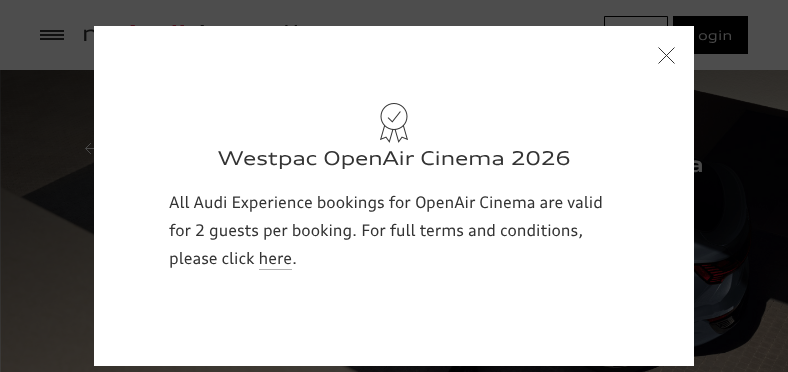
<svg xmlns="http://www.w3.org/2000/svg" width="788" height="372">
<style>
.a{font:13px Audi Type;fill:#494949}
.b{font:bold 22px Audi Type;fill:#494949}
.c{font:19px Audi Type;letter-spacing:-0.25px;fill:#333}
.d{font:16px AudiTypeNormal;fill:#333}
</style>
<rect width="100%" height="100%" fill="#4d4d4d"/>
<path fill="#0f0f0f" d="M40 30h24v2H40z"/>
<path fill="#0f0f0f" d="M40 34h24v2H40z"/>
<path fill="#0f0f0f" d="M40 38h24v2H40z"/>
<image href="1.png" x="84" y="25" width="213" height="16"/>
<path fill="none" stroke="#000" d="M604.5 16.5h63v37H604.5z"/>
<path fill="#000" d="M673 16h75v38H673z"/>
<image href="3.png" x="0" y="70" width="788" height="302"/>
<path fill="none" stroke="#494949" d="M101.5 168v-19.5h-16m5.5 5.5l-5.5-5.5l5.5-5.5"/>
<text class="a" x="698" y="40">ogin</text>
<text class="b" x="688" y="172">a</text>
<path fill="#fff" d="M94 26h600v340H94z"/>
<path fill="none" stroke="#333" d="M674.5 47.5l-16 16m0-16l16 16"/>
<text class="c" x="218" y="165">Westpac OpenAir Cinema 2026</text>
<image href="2.png" x="380" y="103" width="28" height="40"/>
<path fill="#b3b3b3" d="M259 269h33v1H259z"/>
<text class="d" x="169" y="264">please click here.</text>
<text class="d" x="169" y="236">for 2 guests per booking. For full terms and conditions,</text>
<text class="d" x="169" y="208">All Audi Experience bookings for OpenAir Cinema are valid</text>
</svg>
